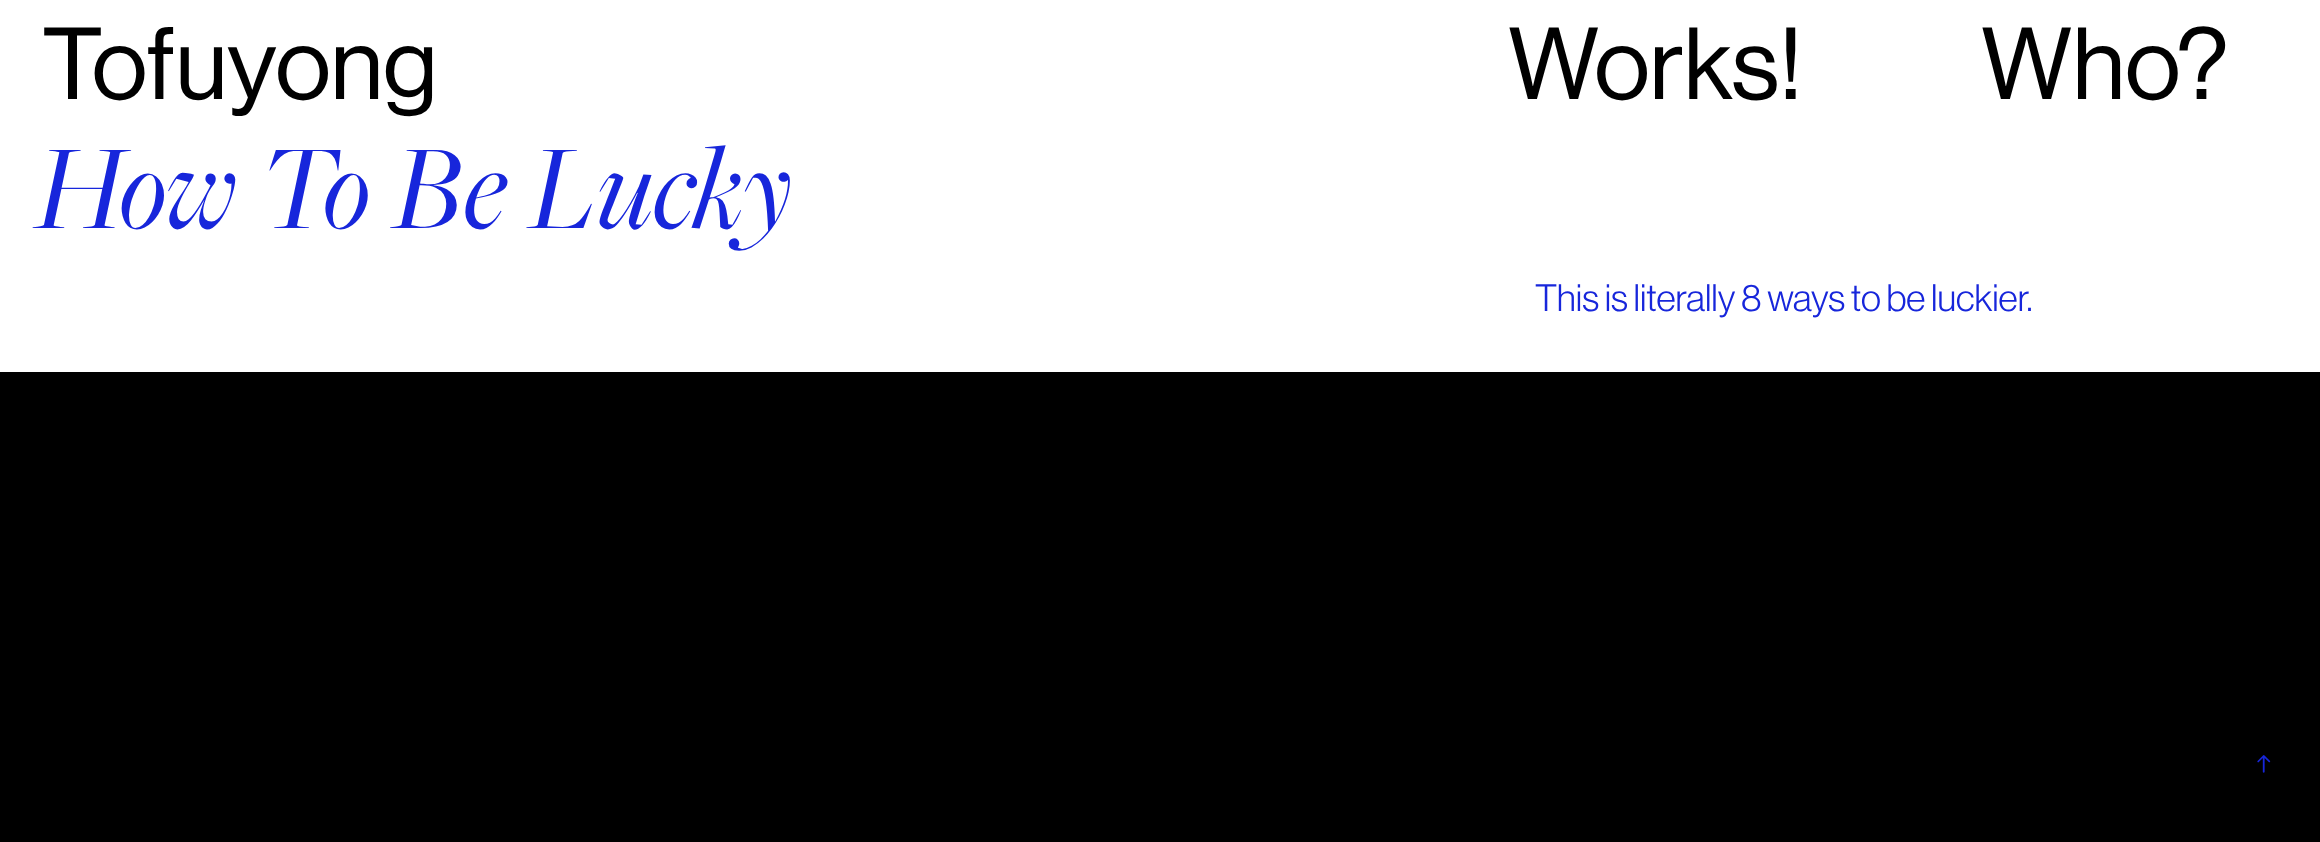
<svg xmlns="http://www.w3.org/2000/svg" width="2320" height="842">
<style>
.a{font:500 100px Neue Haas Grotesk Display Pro;fill:#000}
.b{font:italic 125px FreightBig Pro;fill:#1726db}
.c{font:37.5px Neue Haas Grotesk Display Pro;fill:#1726db}
</style>
<rect width="100%" height="100%" fill="#fff"/>
<path fill="#000" d="M0 372h2320v470H0z"/>
<image href="1.png" x="2257" y="755" width="14" height="18"/>
<text class="a" x="42" y="99">Tofuyong</text>
<text class="a" x="1508" y="99">Works!</text>
<text class="a" x="1981" y="99">Who?</text>
<text class="b" x="35" y="228">How To Be Lucky</text>
<text class="c" x="1535" y="311">This is literally 8 ways to be luckier.</text>
</svg>
